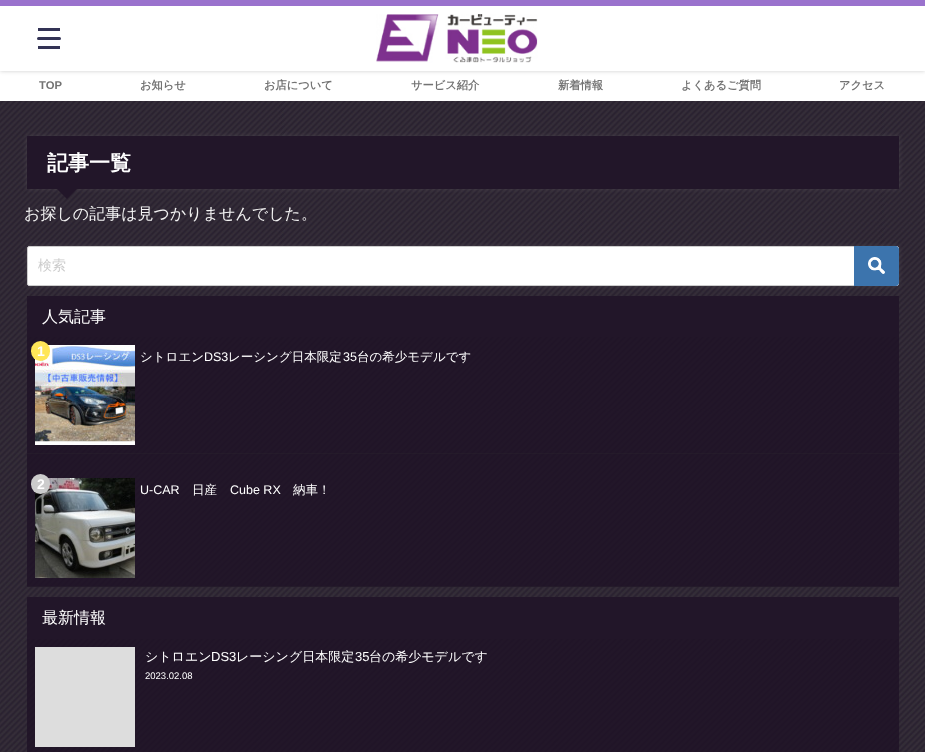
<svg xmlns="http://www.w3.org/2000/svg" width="925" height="752">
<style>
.a{font:bold 11.25px Liberation Sans;fill:#737373}
.b{font:bold 11.25px WenQuanYi Zen Hei;fill:#737373}
.c{font:bold 21px WenQuanYi Zen Hei;fill:#fff}
.d{font:500 16px WenQuanYi Zen Hei;fill:#f4f4f4}
.e{font:500 14px WenQuanYi Zen Hei;fill:#ccc}
.f{font:500 16px WenQuanYi Zen Hei;fill:#fff}
.g{font:bold 14px Liberation Sans;fill:#fff}
.h{font:500 12.5px WenQuanYi Zen Hei;fill:#fff}
.i{font:12.5px Liberation Sans;fill:#fff}
.j{font:500 13px WenQuanYi Zen Hei;fill:#fff}
.k{font:13px Liberation Sans;fill:#fff}
.l{font:9.5px Liberation Sans;fill:#fff}
</style>
<rect width="100%" height="100%" fill="#fff"/>
<image href="1.png" x="0" y="101" width="925" height="651"/>
<path fill="#00000033" filter="blur(2px)" d="M0 0h925v71H0z"/>
<path fill="#fff" d="M0 6h925v65H0z"/>
<path fill="#9a72cd" d="M0 0h925v6H0z"/>
<path fill="#335" d="M38 28h22v3H38z"/>
<rect fill="#335" x="37" y="37" width="24" height="3" rx="1.5"/>
<path fill="#335" d="M38 46h22v3H38z"/>
<image href="2.png" x="376" y="14" width="162" height="49"/>
<path fill="#96969633" filter="blur(2.5px)" d="M27 136h872v53H27z"/>
<path fill="#221629" d="M27 136h872v53H27z"/>
<path fill="#221629" d="M57 189h20l-10 10z"/>
<path fill="#96969633" filter="blur(2.5px)" d="M27 246h872v40H27z"/>
<path fill="#1e1226cc" d="M27 246h872v40H27z"/>
<rect fill="#fff" stroke="#ccc" x="27.5" y="246.5" width="871" height="39" rx="1.5"/>
<path fill="#3c74ad" d="M854 246h42c1.5 0 3 1.5 3 3v34c0 1.5-1.5 3-3 3h-42z"/>
<image href="3.png" x="868" y="257" width="17" height="17"/>
<path fill="#1e1226cc" d="M27 337h872v250H27z"/>
<path fill="#221629" d="M27 296h872v41H27z"/>
<path fill="#32323233" d="M27 453h872v1H27z"/>
<image href="4.png" x="35" y="345" width="100" height="100"/>
<rect fill="#ffe658" x="31" y="341" width="19" height="20" rx="9.5"/>
<path fill="#32323233" d="M27 586h872v1H27z"/>
<image href="5.png" x="35" y="478" width="100" height="100"/>
<rect fill="#ccc" x="31" y="474" width="19" height="20" rx="9.5"/>
<path fill="#1e1226cc" d="M27 639h872v113H27z"/>
<path fill="#221629" d="M27 597h872v42H27z"/>
<path fill="#ddd" d="M35 647h100v100H35z"/>
<text class="a" x="39" y="89">TOP</text>
<text class="b" x="140" y="89">お知らせ</text>
<text class="b" x="264" y="89">お店について</text>
<text class="b" x="411" y="89">サービス紹介</text>
<text class="b" x="558" y="89">新着情報</text>
<text class="b" x="681" y="89">よくあるご質問</text>
<text class="b" x="839" y="89">アクセス</text>
<text class="c" x="47" y="170">記事一覧</text>
<text class="d" x="24" y="219">お探しの記事は見つかりませんでした。</text>
<text class="e" x="38" y="270">検索</text>
<text class="f" x="42" y="322">人気記事</text>
<text class="g" x="37" y="356">1</text>
<text class="h" x="140" y="361">シトロエン</text>
<text class="i" x="204" y="361">DS3</text>
<text class="h" x="228" y="361">レーシング日本限定</text>
<text class="i" x="343" y="361">35</text>
<text class="h" x="357" y="361">台の希少モデルです</text>
<text class="g" x="37" y="489">2</text>
<text class="i" x="140" y="494">U-CAR</text>
<text class="h" x="192" y="494">日産</text>
<text class="i" x="230" y="494">Cube RX</text>
<text class="h" x="293" y="494">納車！</text>
<text class="f" x="42" y="623">最新情報</text>
<text class="j" x="145" y="661">シトロエン</text>
<text class="k" x="211" y="661">DS3</text>
<text class="j" x="236" y="661">レーシング日本限定</text>
<text class="k" x="355" y="661">35</text>
<text class="j" x="369" y="661">台の希少モデルです</text>
<text class="l" x="145" y="679">2023.02.08</text>
</svg>
